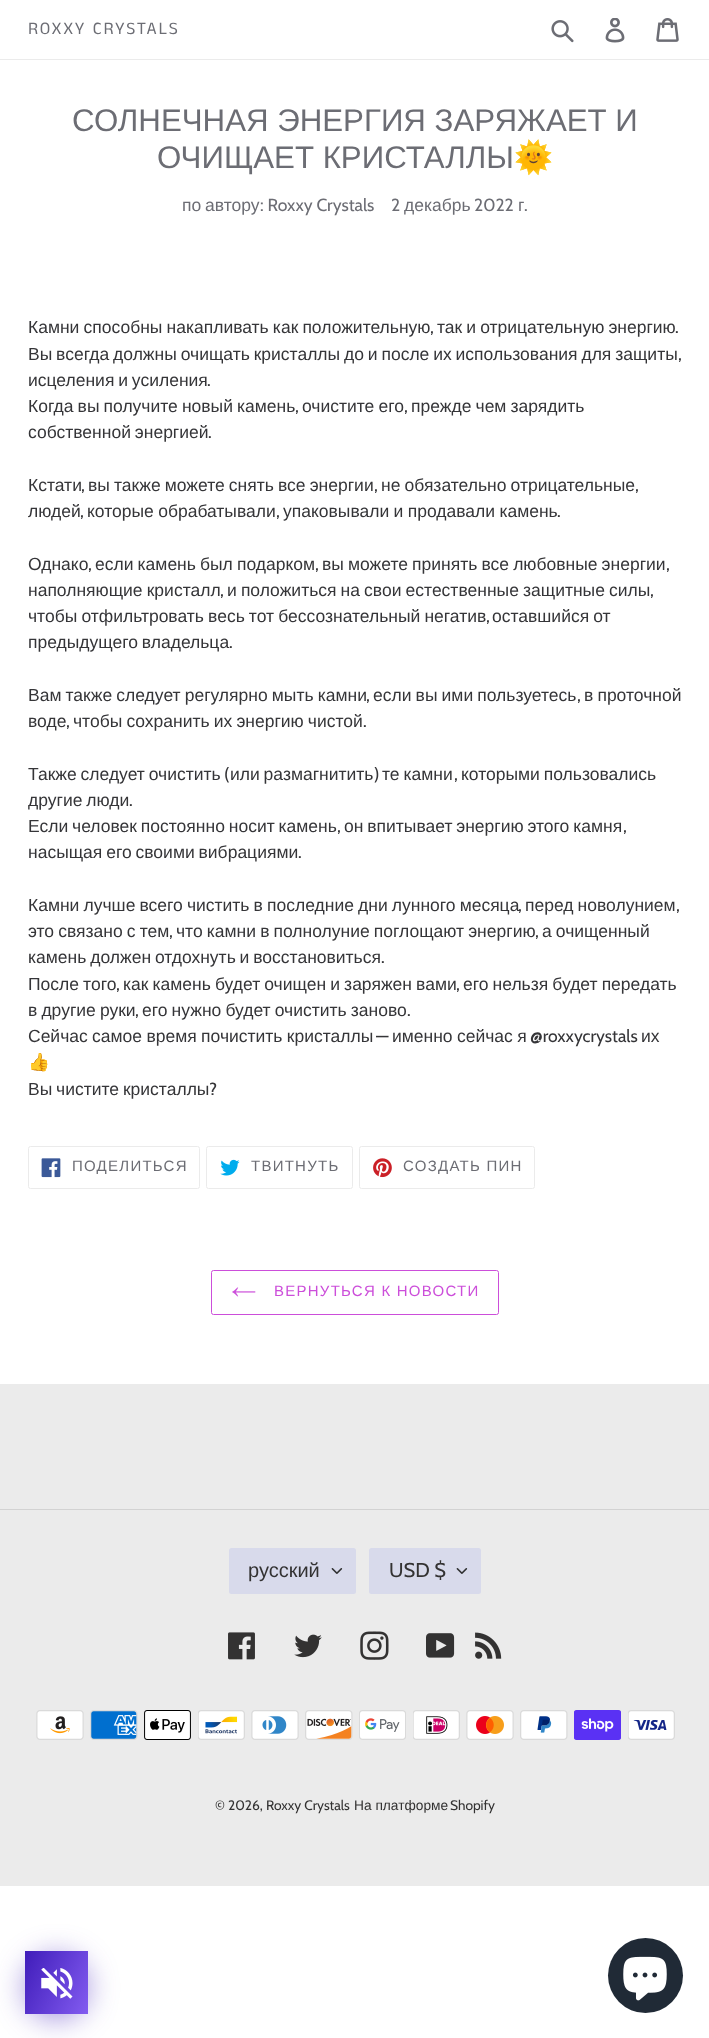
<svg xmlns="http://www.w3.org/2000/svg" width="709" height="2038">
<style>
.a{font:17.5px Anek Tamil;letter-spacing:1.75px;fill:#6c6d74}
.b{font:31.25px Liberation Sans;fill:#6c6d74}
.c{font:31.25px Noto Color Emoji;fill:#6c6d74}
.d{font:17.5px Liberation Sans;fill:#6c6d74}
.e{font:17.5px Cabin;fill:#6c6d74}
.f{font:17.5px Liberation Sans;fill:#353538}
.g{font:17.5px Cabin;fill:#353538}
.h{font:17.5px Noto Color Emoji;fill:#353538}
.i{font:15px Liberation Sans;letter-spacing:1.25px;fill:#6c6d74}
.j{font:15px Liberation Sans;letter-spacing:1.25px;fill:#cc4eda}
.k{font:20px Liberation Sans;fill:#333232}
.l{font:20px Cabin;fill:#333232}
.m{font:13.75px Cabin;fill:#333232}
.n{font:13.75px Liberation Sans;fill:#333232}
</style>
<defs>
<linearGradient id="g1" gradientUnits="userSpaceOnUse" x1="19" y1="1965" x2="94" y2="2000"><stop offset="0" stop-color="#401dba"/><stop offset="1" stop-color="#825bf0"/></linearGradient>
</defs>
<rect width="100%" height="100%" fill="#fff"/>
<path fill="#ebebeb" d="M0 59h709v1H0z"/>
<image href="1.png" x="551" y="20" width="23" height="23"/>
<image href="2.png" x="605" y="18" width="20" height="25"/>
<image href="3.png" x="656" y="18" width="23" height="24"/>
<rect fill="none" stroke="#ebebeb" x="28.5" y="1146.5" width="171" height="42" rx="2"/>
<image href="4.png" x="41" y="1158" width="20" height="20"/>
<rect fill="none" stroke="#ebebeb" x="206.5" y="1146.5" width="146" height="42" rx="2"/>
<image href="5.png" x="220" y="1159" width="20" height="17"/>
<rect fill="none" stroke="#ebebeb" x="359.5" y="1146.5" width="175" height="42" rx="2"/>
<image href="6.png" x="373" y="1158" width="19" height="20"/>
<rect fill="none" stroke="#cc4eda" x="211.5" y="1270.5" width="287" height="44" rx="2"/>
<image href="7.png" x="232" y="1287" width="24" height="10"/>
<path fill="#ebebeb" d="M0 1384h709v502H0z"/>
<path fill="#d2d2d2" d="M0 1509h709v1H0z"/>
<rect fill="#d8daeb" x="229" y="1548" width="127" height="46" rx="2.5"/>
<image href="8.png" x="331" y="1568" width="12" height="6"/>
<rect fill="#d8daeb" x="369" y="1548" width="112" height="46" rx="2.5"/>
<image href="8.png" x="456" y="1568" width="12" height="6"/>
<image href="9.png" x="228" y="1632" width="27" height="28"/>
<image href="10.png" x="294" y="1634" width="28" height="24"/>
<image href="11.png" x="360" y="1631" width="29" height="29"/>
<image href="12.png" x="426" y="1633" width="29" height="25"/>
<image href="13.png" x="475" y="1632" width="27" height="27"/>
<image href="14.png" x="36" y="1710" width="48" height="30"/>
<image href="15.png" x="90" y="1710" width="48" height="30"/>
<image href="16.png" x="144" y="1710" width="47" height="30"/>
<image href="17.png" x="198" y="1710" width="47" height="30"/>
<image href="18.png" x="251" y="1710" width="48" height="30"/>
<image href="19.png" x="305" y="1710" width="48" height="30"/>
<image href="20.png" x="359" y="1710" width="47" height="30"/>
<image href="21.png" x="413" y="1710" width="47" height="30"/>
<image href="22.png" x="466" y="1710" width="48" height="30"/>
<image href="23.png" x="520" y="1710" width="48" height="30"/>
<image href="24.png" x="574" y="1710" width="47" height="30"/>
<image href="25.png" x="628" y="1710" width="47" height="30"/>
<rect fill="#401dba80" filter="blur(15px)" x="25" y="1956" width="63" height="63" rx="31.5"/>
<path fill="url(#g1)" d="M25 1951h63v63H25z"/>
<image href="26.png" x="41" y="1968" width="32" height="31"/>
<circle fill="#202a36" cx="645.5" cy="1975.5" r="37.5"/>
<image href="27.png" x="623" y="1956" width="44" height="45"/>
<text class="a" x="28" y="34">ROXXY CRYSTALS</text>
<text class="b" x="72" y="131">СОЛНЕЧНАЯ ЭНЕРГИЯ ЗАРЯЖАЕТ И</text>
<text class="b" x="157" y="168">ОЧИЩАЕТ КРИСТАЛЛЫ</text>
<text class="c" x="514" y="168">🌞</text>
<text class="d" x="182" y="211">по</text>
<text class="d" x="205" y="211">автору</text>
<text class="e" x="260" y="211">: Roxxy Crystals</text>
<text class="e" x="391" y="211">2</text>
<text class="d" x="404" y="211">декабрь</text>
<text class="e" x="474" y="211">2022</text>
<text class="d" x="518" y="211">г</text>
<text class="e" x="524" y="211">.</text>
<text class="f" x="28" y="333" word-spacing="-0.75">Камни способны накапливать как положительную</text>
<text class="g" x="430" y="333">,</text>
<text class="f" x="437" y="333" word-spacing="-0.75">так и отрицательную энергию</text>
<text class="g" x="675" y="333">.</text>
<text class="f" x="28" y="360" word-spacing="-1">Вы всегда должны очищать кристаллы до и после их использования для защиты</text>
<text class="g" x="678" y="360">,</text>
<text class="f" x="28" y="386" word-spacing="-1">исцеления и усиления</text>
<text class="g" x="207" y="386">.</text>
<text class="f" x="28" y="412" word-spacing="-0.75">Когда вы получите новый камень</text>
<text class="g" x="295" y="412">,</text>
<text class="f" x="302" y="412" word-spacing="-0.75">очистите его</text>
<text class="g" x="404" y="412">,</text>
<text class="f" x="411" y="412" word-spacing="-0.75">прежде чем зарядить</text>
<text class="f" x="28" y="438" word-spacing="-1">собственной энергией</text>
<text class="g" x="208" y="438">.</text>
<text class="f" x="28" y="491">Кстати</text>
<text class="g" x="81" y="491">,</text>
<text class="f" x="88" y="491" word-spacing="-0.75">вы также можете снять все энергии</text>
<text class="g" x="374" y="491">,</text>
<text class="f" x="381" y="491" word-spacing="-0.75">не обязательно отрицательные</text>
<text class="g" x="635" y="491">,</text>
<text class="f" x="28" y="517">людей</text>
<text class="g" x="80" y="517">,</text>
<text class="f" x="87" y="517" word-spacing="-0.5">которые обрабатывали</text>
<text class="g" x="276" y="517">,</text>
<text class="f" x="283" y="517" word-spacing="-0.5">упаковывали и продавали камень</text>
<text class="g" x="557" y="517">.</text>
<text class="f" x="28" y="570">Однако</text>
<text class="g" x="88" y="570">,</text>
<text class="f" x="95" y="570" word-spacing="-0.75">если камень был подарком</text>
<text class="g" x="315" y="570">,</text>
<text class="f" x="322" y="570" word-spacing="-0.75">вы можете принять все любовные энергии</text>
<text class="g" x="666" y="570">,</text>
<text class="f" x="28" y="596" word-spacing="-0.75">наполняющие кристалл</text>
<text class="g" x="220" y="596">,</text>
<text class="f" x="227" y="596" word-spacing="-0.75">и положиться на свои естественные защитные силы</text>
<text class="g" x="650" y="596">,</text>
<text class="f" x="28" y="622" word-spacing="-0.75">чтобы отфильтровать весь тот бессознательный негатив</text>
<text class="g" x="486" y="622">,</text>
<text class="f" x="492" y="622" word-spacing="-0.75">оставшийся от</text>
<text class="f" x="28" y="648" word-spacing="-1">предыдущего владельца</text>
<text class="g" x="229" y="648">.</text>
<text class="f" x="28" y="701" word-spacing="-0.75">Вам также следует регулярно мыть камни</text>
<text class="g" x="366" y="701">,</text>
<text class="f" x="373" y="701" word-spacing="-0.75">если вы ими пользуетесь</text>
<text class="g" x="577" y="701">,</text>
<text class="f" x="584" y="701" word-spacing="-0.75">в проточной</text>
<text class="f" x="28" y="727">воде</text>
<text class="g" x="66" y="727">,</text>
<text class="f" x="73" y="727" word-spacing="-0.75">чтобы сохранить их энергию чистой</text>
<text class="g" x="363" y="727">.</text>
<text class="f" x="28" y="780" word-spacing="-1">Также следует очистить</text>
<text class="g" x="224" y="780">(</text>
<text class="f" x="230" y="780" word-spacing="-1">или размагнитить</text>
<text class="g" x="374" y="780">)</text>
<text class="f" x="382" y="780" word-spacing="-1">те камни</text>
<text class="g" x="454" y="780">,</text>
<text class="f" x="461" y="780" word-spacing="-1">которыми пользовались</text>
<text class="f" x="28" y="806" word-spacing="-1">другие люди</text>
<text class="g" x="129" y="806">.</text>
<text class="f" x="28" y="832" word-spacing="-1">Если человек постоянно носит камень</text>
<text class="g" x="337" y="832">,</text>
<text class="f" x="344" y="832" word-spacing="-1">он впитывает энергию этого камня</text>
<text class="g" x="623" y="832">,</text>
<text class="f" x="28" y="858" word-spacing="-1">насыщая его своими вибрациями</text>
<text class="g" x="298" y="858">.</text>
<text class="f" x="28" y="911" word-spacing="-0.75">Камни лучше всего чистить в последние дни лунного месяца</text>
<text class="g" x="518" y="911">,</text>
<text class="f" x="525" y="911" word-spacing="-0.75">перед новолунием</text>
<text class="g" x="676" y="911">,</text>
<text class="f" x="28" y="937" word-spacing="-0.75">это связано с тем</text>
<text class="g" x="169" y="937">,</text>
<text class="f" x="176" y="937" word-spacing="-0.75">что камни в полнолуние поглощают энергию</text>
<text class="g" x="535" y="937">,</text>
<text class="f" x="542" y="937" word-spacing="-0.75">а очищенный</text>
<text class="f" x="28" y="963" word-spacing="-1">камень должен отдохнуть и восстановиться</text>
<text class="g" x="381" y="963">.</text>
<text class="f" x="28" y="990" word-spacing="-0.75">После того</text>
<text class="g" x="116" y="990">,</text>
<text class="f" x="123" y="990" word-spacing="-0.75">как камень будет очищен и заряжен вами</text>
<text class="g" x="456" y="990">,</text>
<text class="f" x="463" y="990" word-spacing="-0.75">его нельзя будет передать</text>
<text class="f" x="28" y="1016" word-spacing="-0.75">в другие руки</text>
<text class="g" x="135" y="1016">,</text>
<text class="f" x="142" y="1016" word-spacing="-0.75">его нужно будет очистить заново</text>
<text class="g" x="407" y="1016">.</text>
<text class="f" x="28" y="1042" word-spacing="-0.5">Сейчас самое время почистить кристаллы</text>
<text class="g" x="376" y="1042">—</text>
<text class="f" x="392" y="1042" word-spacing="-0.5">именно сейчас я</text>
<text class="g" x="530" y="1042">@roxxycrystals</text>
<text class="f" x="641" y="1042">их</text>
<text class="h" x="28" y="1068">👍</text>
<text class="f" x="28" y="1095" word-spacing="-1">Вы чистите кристаллы</text>
<text class="g" x="209" y="1095">?</text>
<text class="i" x="72" y="1171">ПОДЕЛИТЬСЯ</text>
<text class="i" x="251" y="1171">ТВИТНУТЬ</text>
<text class="i" x="403" y="1171">СОЗДАТЬ ПИН</text>
<text class="j" x="274" y="1296">ВЕРНУТЬСЯ К НОВОСТИ</text>
<text class="k" x="248" y="1577">русский</text>
<text class="l" x="389" y="1577">USD $</text>
<text class="m" x="215" y="1810">© 2026, Roxxy Crystals</text>
<text class="n" x="354" y="1810">На платформе</text>
<text class="m" x="450" y="1810">Shopify</text>
</svg>
